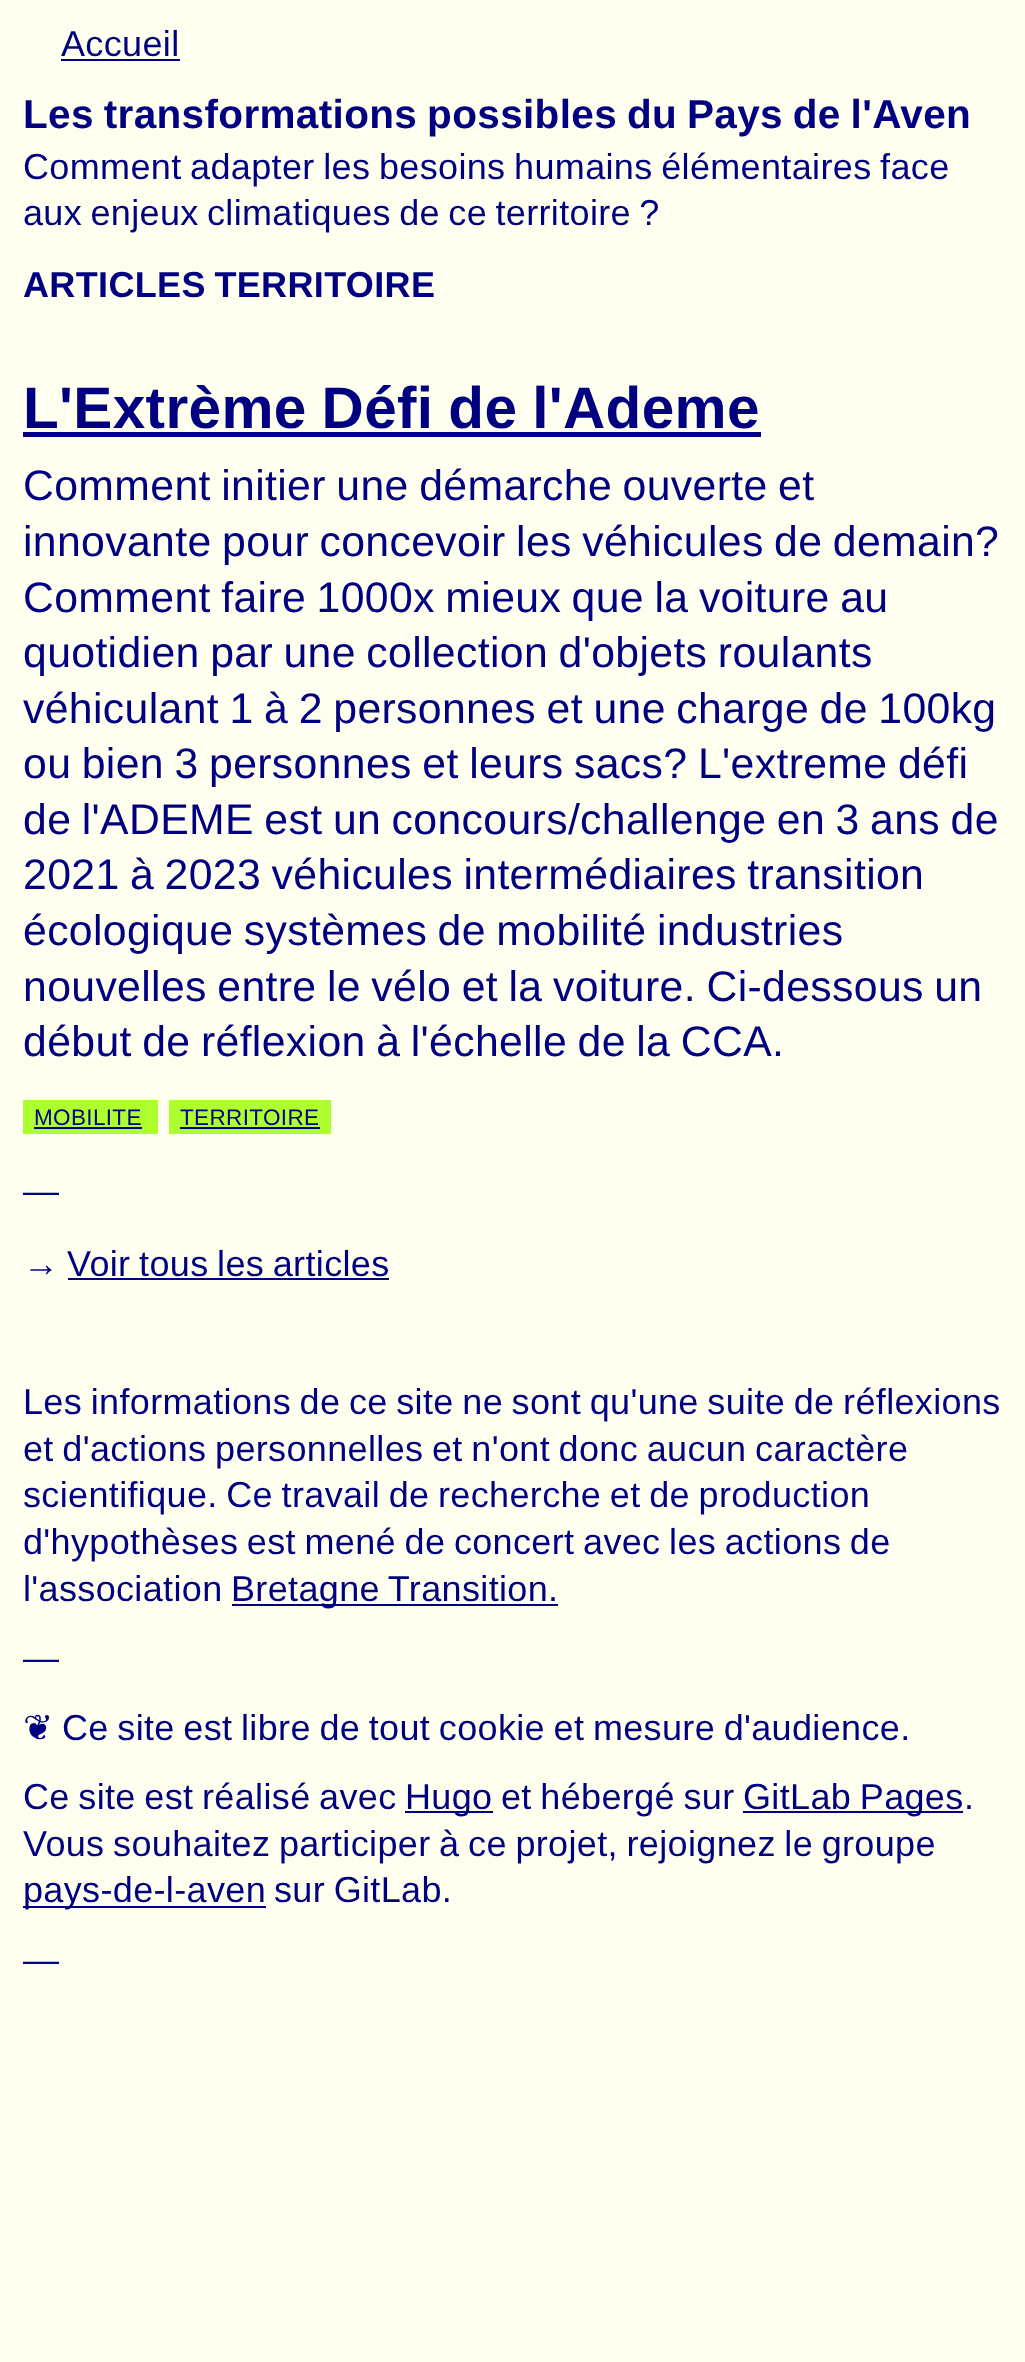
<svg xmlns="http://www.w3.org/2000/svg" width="1025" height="2362">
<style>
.a{font:36px Liberation Sans;letter-spacing:0.35px;fill:#000080}
.b{font:bold 40.5px Liberation Sans;letter-spacing:0.35px;fill:#000080}
.c{font:bold 36px Liberation Sans;letter-spacing:0.35px;fill:#000080}
.d{font:bold 58.5px Liberation Sans;letter-spacing:0.35px;fill:#000080}
.e{font:42.75px Liberation Sans;letter-spacing:0.35px;fill:#000080}
.f{font:22.5px Liberation Sans;letter-spacing:0.35px;fill:#000080}
.g{font:36px DejaVu Sans;letter-spacing:0.35px;fill:#000080}
</style>
<rect width="100%" height="100%" fill="#fffff0"/>
<path fill="#000080" d="M61 59h119v2H61z"/>
<path fill="#000080" d="M23 432h738v5H23z"/>
<path fill="#adff2f" d="M23 1100h135v34H23z"/>
<path fill="#000080" d="M34 1127h108v2H34z"/>
<path fill="#adff2f" d="M169 1100h162v34H169z"/>
<path fill="#000080" d="M180 1127h140v2H180z"/>
<path fill="#000080" d="M68 1278h321v2H68z"/>
<path fill="#000080" d="M232 1604h326v2H232z"/>
<path fill="#000080" d="M405 1811h88v2H405z"/>
<path fill="#000080" d="M743 1811h220v2H743z"/>
<path fill="#000080" d="M23 1906h243v2H23z"/>
<text class="a" x="61" y="56">Accueil</text>
<text class="b" x="23" y="128" word-spacing="-1.75">Les transformations possibles du Pays de l'Aven</text>
<text class="a" x="23" y="179" word-spacing="-1.75">Comment adapter les besoins humains élémentaires face</text>
<text class="a" x="23" y="225" word-spacing="-2">aux enjeux climatiques de ce territoire ?</text>
<text class="c" x="23" y="297" word-spacing="-1.75">ARTICLES TERRITOIRE</text>
<text class="d" x="23" y="428" word-spacing="-1.75">L'Extrème Défi de l'Ademe</text>
<text class="e" x="23" y="500" word-spacing="-1.75">Comment initier une démarche ouverte et</text>
<text class="e" x="23" y="556" word-spacing="-1.75">innovante pour concevoir les véhicules de demain?</text>
<text class="e" x="23" y="612" word-spacing="-1.75">Comment faire 1000x mieux que la voiture au</text>
<text class="e" x="23" y="667" word-spacing="-1.75">quotidien par une collection d'objets roulants</text>
<text class="e" x="23" y="723" word-spacing="-1.75">véhiculant 1 à 2 personnes et une charge de 100kg</text>
<text class="e" x="23" y="778" word-spacing="-1.75">ou bien 3 personnes et leurs sacs? L'extreme défi</text>
<text class="e" x="23" y="834" word-spacing="-1.75">de l'ADEME est un concours/challenge en 3 ans de</text>
<text class="e" x="23" y="889" word-spacing="-1.75">2021 à 2023 véhicules intermédiaires transition</text>
<text class="e" x="23" y="945" word-spacing="-1.75">écologique systèmes de mobilité industries</text>
<text class="e" x="23" y="1001" word-spacing="-1.75">nouvelles entre le vélo et la voiture. Ci-dessous un</text>
<text class="e" x="23" y="1056" word-spacing="-1.75">début de réflexion à l'échelle de la CCA.</text>
<text class="f" x="34" y="1125">MOBILITE</text>
<text class="f" x="180" y="1125">TERRITOIRE</text>
<text class="a" x="23" y="1203">—</text>
<text class="a" x="23" y="1276">→</text>
<text class="a" x="67" y="1276" word-spacing="-1.75">Voir tous les articles</text>
<text class="a" x="23" y="1414" word-spacing="-1.75">Les informations de ce site ne sont qu'une suite de réflexions</text>
<text class="a" x="23" y="1461" word-spacing="-1.75">et d'actions personnelles et n'ont donc aucun caractère</text>
<text class="a" x="23" y="1507" word-spacing="-1.75">scientifique. Ce travail de recherche et de production</text>
<text class="a" x="23" y="1554" word-spacing="-1.75">d'hypothèses est mené de concert avec les actions de</text>
<text class="a" x="23" y="1601">l'association</text>
<text class="a" x="231" y="1601" word-spacing="-1.75">Bretagne Transition.</text>
<text class="a" x="23" y="1670">—</text>
<text class="g" x="23" y="1740">❦</text>
<text class="a" x="62" y="1740" word-spacing="-1.75">Ce site est libre de tout cookie et mesure d'audience.</text>
<text class="a" x="23" y="1809" word-spacing="-1.75">Ce site est réalisé avec</text>
<text class="a" x="405" y="1809">Hugo</text>
<text class="a" x="501" y="1809" word-spacing="-1.75">et hébergé sur</text>
<text class="a" x="743" y="1809" word-spacing="-1.75">GitLab Pages</text>
<text class="a" x="964" y="1809">.</text>
<text class="a" x="23" y="1856" word-spacing="-1.75">Vous souhaitez participer à ce projet, rejoignez le groupe</text>
<text class="a" x="23" y="1902">pays-de-l-aven</text>
<text class="a" x="274" y="1902" word-spacing="-1.75">sur GitLab.</text>
<text class="a" x="23" y="1972">—</text>
</svg>
